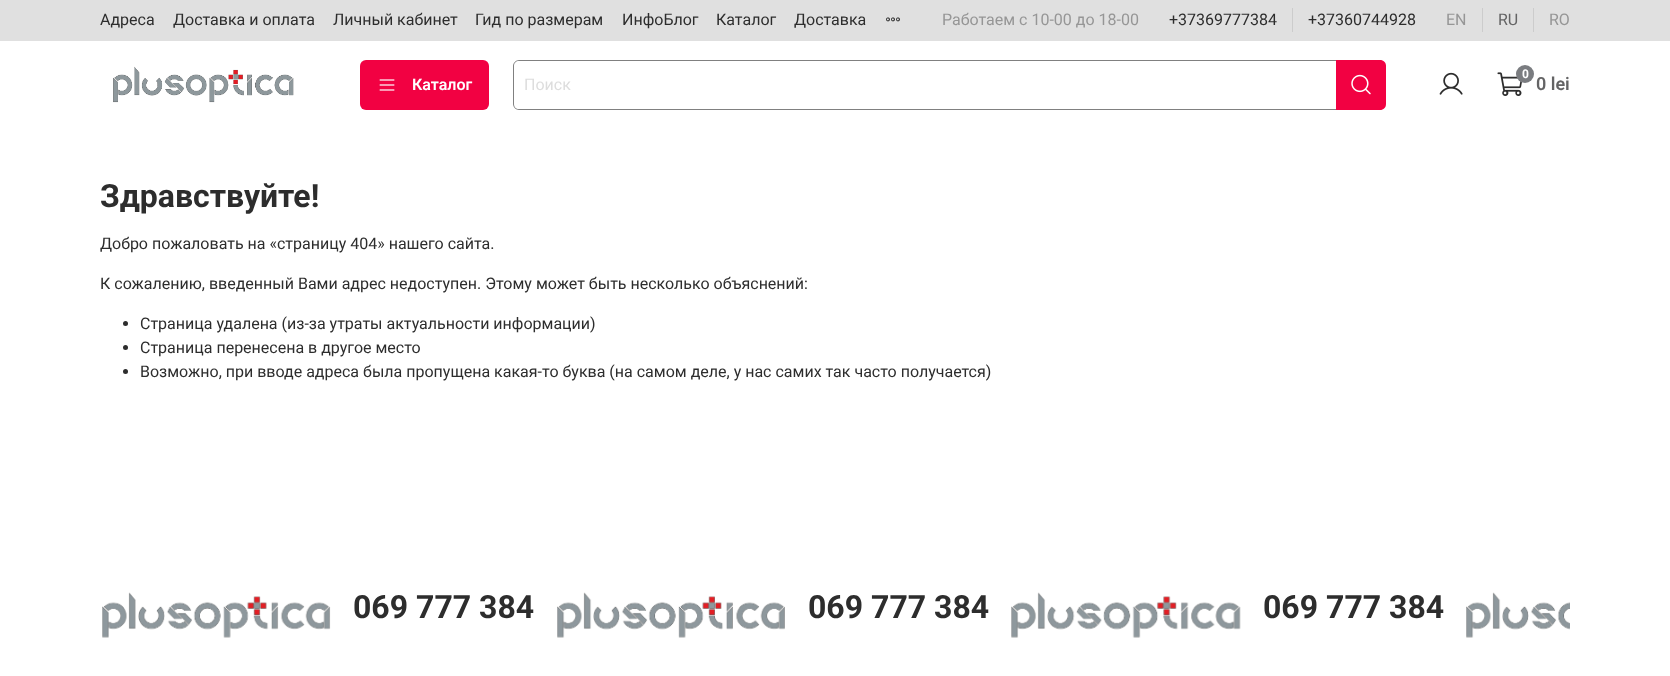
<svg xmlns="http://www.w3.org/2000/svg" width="1670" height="676">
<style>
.a{font:16px Roboto;fill:#2d2d2d}
.b{font:16px Roboto;fill:#969696}
.c{font:16px Roboto;fill:#646465}
.d{font:600 16px Roboto;fill:#fff}
.e{font:16px Roboto;fill:#ddd}
.f{font:bold 12px Roboto;fill:#fff}
.g{font:600 18px Roboto;fill:#646465}
.h{font:bold 32px Roboto;fill:#2d2d2d}
</style>
<rect width="100%" height="100%" fill="#fff"/>
<path fill="#e0e0e0" d="M0 0h1670v41H0z"/>
<image href="1.png" x="886" y="17" width="14" height="5"/>
<path fill="#ccc" d="M1292 8h1v24H1292z"/>
<path fill="#ccc" d="M1482 8h1v24H1482z"/>
<path fill="#ccc" d="M1533 8h1v24H1533z"/>
<image href="2.png" x="113" y="66" width="181" height="37"/>
<rect fill="#f20142" x="360" y="60" width="129" height="50" rx="6"/>
<image href="3.png" x="379" y="79" width="16" height="12"/>
<path fill="#808080" fill-rule="evenodd" d="M519 60h817v50h-817c-3 0-6-3-6-6v-38c0-3 3-6 6-6zm0 1h817v48h-817c-3 0-5-2-5-5v-38c0-3 2-5 5-5z"/>
<path fill="#f20142" d="M1336 60h44c3.5 0 6 2.5 6 6v38c0 3.5-2.5 6-6 6h-44z"/>
<image href="4.png" x="1351" y="74" width="20" height="21"/>
<image href="5.png" x="1439" y="72" width="24" height="23"/>
<image href="6.png" x="1497" y="72" width="25" height="24"/>
<circle fill="#7a7c80" cx="1525" cy="74" r="9"/>
<circle fill="#2d2d2d" cx="125.5" cy="323.5" r="2.5"/>
<circle fill="#2d2d2d" cx="125.5" cy="347.5" r="2.5"/>
<circle fill="#2d2d2d" cx="125.5" cy="371.5" r="2.5"/>
<image href="7.png" x="102" y="592" width="229" height="46"/>
<image href="8.png" x="557" y="592" width="228" height="46"/>
<image href="9.png" x="1011" y="592" width="230" height="46"/>
<image href="10.png" x="1466" y="592" width="104" height="46"/>
<text class="a" x="100" y="25">Адреса</text>
<text class="a" x="173" y="25">Доставка и оплата</text>
<text class="a" x="333" y="25">Личный кабинет</text>
<text class="a" x="475" y="25">Гид по размерам</text>
<text class="a" x="622" y="25">ИнфоБлог</text>
<text class="a" x="716" y="25">Каталог</text>
<text class="a" x="794" y="25">Доставка</text>
<text class="b" x="942" y="25">Работаем с 10-00 до 18-00</text>
<text class="a" x="1169" y="25">+37369777384</text>
<text class="a" x="1308" y="25">+37360744928</text>
<text class="b" x="1446" y="25">EN</text>
<text class="c" x="1498" y="25">RU</text>
<text class="b" x="1549" y="25">RO</text>
<text class="d" x="412" y="90">Каталог</text>
<text class="e" x="524" y="90">Поиск</text>
<text class="f" x="1522" y="78">0</text>
<text class="g" x="1536" y="90">0 lei</text>
<text class="h" x="100" y="207">Здравствуйте!</text>
<text class="a" x="100" y="249">Добро пожаловать на «страницу 404» нашего сайта.</text>
<text class="a" x="100" y="289">К сожалению, введенный Вами адрес недоступен. Этому может быть несколько объяснений:</text>
<text class="a" x="140" y="329">Страница удалена (из-за утраты актуальности информации)</text>
<text class="a" x="140" y="353">Страница перенесена в другое место</text>
<text class="a" x="140" y="377">Возможно, при вводе адреса была пропущена какая-то буква (на самом деле, у нас самих так часто получается)</text>
<text class="h" x="353" y="618">069 777 384</text>
<text class="h" x="808" y="618">069 777 384</text>
<text class="h" x="1263" y="618">069 777 384</text>
</svg>
